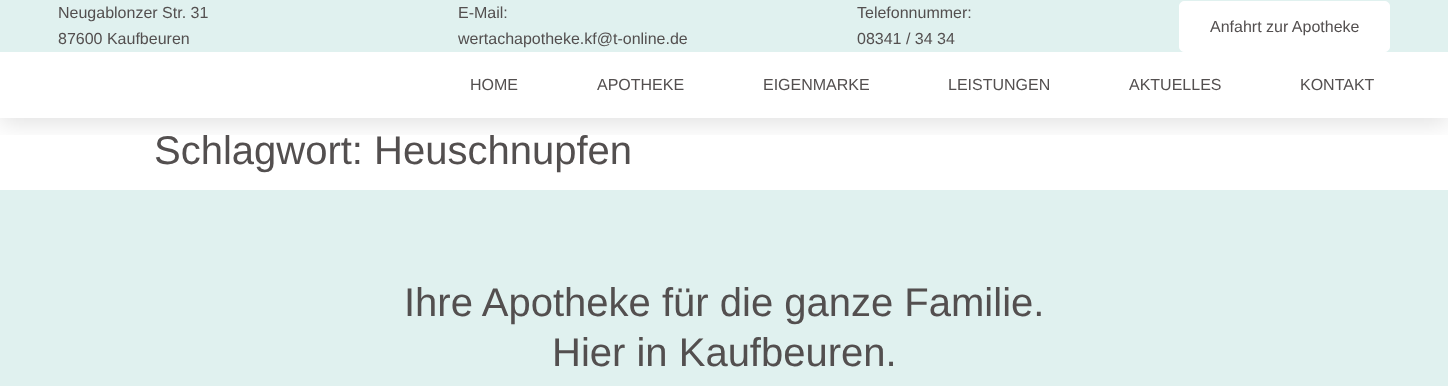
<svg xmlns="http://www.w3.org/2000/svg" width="1448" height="386">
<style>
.a{font:16px Liberation Sans;fill:#534f4f}
.b{font:40px Liberation Sans;fill:#534f4f}
</style>
<defs>
<clipPath id="clip1"><path d="M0 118h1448v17H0z"/></clipPath>
</defs>
<rect width="100%" height="100%" fill="#fff"/>
<g clip-path="url(#clip1)">
<path fill="#0000001f" filter="blur(12px)" d="M0 57h1448v66H0z"/>
</g>
<path fill="#e0f1ef" d="M0 0h1448v52H0z"/>
<rect fill="#fff" stroke="#fff" x="1179.5" y="1.5" width="210" height="50" rx="4.5"/>
<path fill="#e0f1ef" d="M0 190h1448v196H0z"/>
<text class="a" x="58" y="18">Neugablonzer Str. 31</text>
<text class="a" x="58" y="44">87600 Kaufbeuren</text>
<text class="a" x="458" y="18">E-Mail:</text>
<text class="a" x="458" y="44">wertachapotheke.kf@t-online.de</text>
<text class="a" x="857" y="18">Telefonnummer:</text>
<text class="a" x="857" y="44">08341 / 34 34</text>
<text class="a" x="1210" y="32">Anfahrt zur Apotheke</text>
<text class="a" x="470" y="90">HOME</text>
<text class="a" x="597" y="90">APOTHEKE</text>
<text class="a" x="763" y="90">EIGENMARKE</text>
<text class="a" x="948" y="90">LEISTUNGEN</text>
<text class="a" x="1129" y="90">AKTUELLES</text>
<text class="a" x="1300" y="90">KONTAKT</text>
<text class="b" x="154" y="164">Schlagwort: Heuschnupfen</text>
<text class="b" x="404" y="316">Ihre Apotheke für die ganze Familie.</text>
<text class="b" x="552" y="366">Hier in Kaufbeuren.</text>
</svg>
